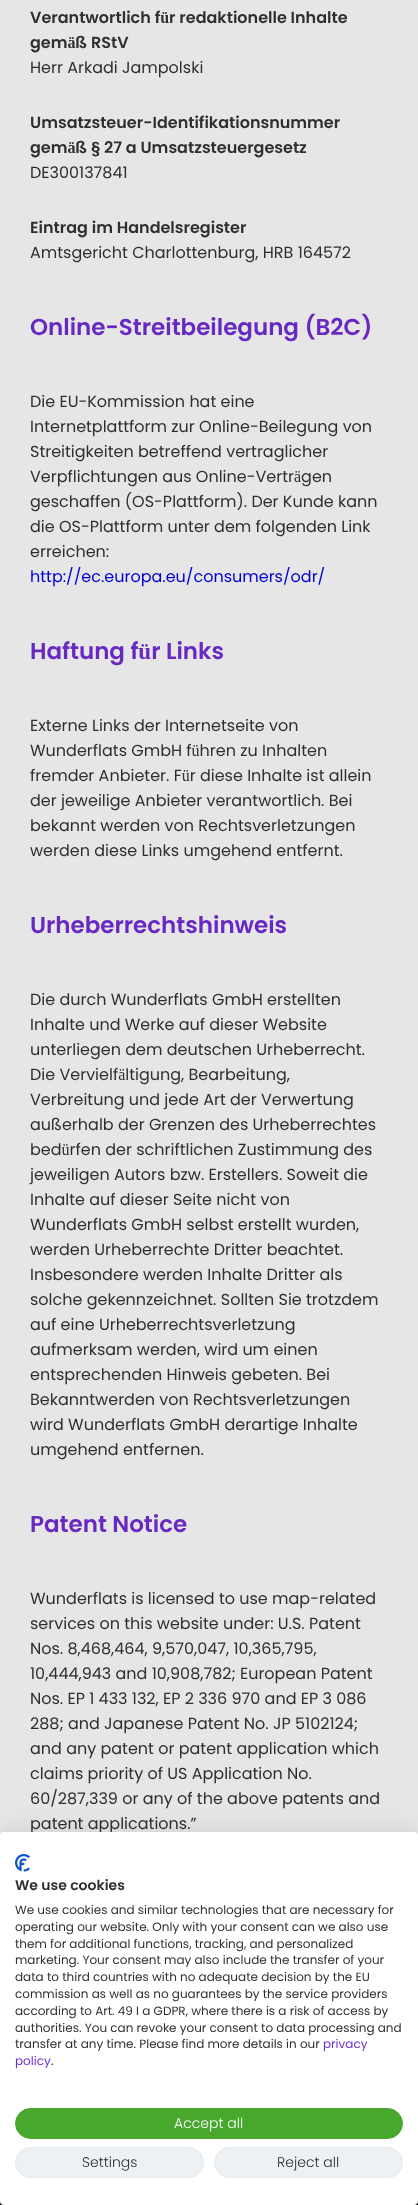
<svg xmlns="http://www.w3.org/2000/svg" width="418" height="2205">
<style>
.a{font:600 16px Poppins;fill:#2f2f2f}
.b{font:16px Poppins;fill:#2f2f2f}
.c{font:600 23px Poppins;fill:#6829c3}
.d{font:16px Poppins;fill:#0000d6}
.e{font:600 14px Poppins;fill:#2f2f2f}
.f{font:12px Poppins;fill:#2f2f2f}
.g{font:12px Poppins;fill:#732dd9}
.h{font:300 14px Poppins;fill:#fff}
.i{font:300 14px Poppins;fill:#2f2f2f}
</style>
<rect width="100%" height="100%" fill="#e6e6e6"/>
<path fill="#000" d="M0 2201h418v4H0z"/>
<rect fill="#0000001a" filter="blur(12px)" y="1832" width="418" height="373" rx="4"/>
<text class="a" x="30" y="23">Verantwortlich für redaktionelle Inhalte</text>
<text class="a" x="30" y="48">gemäß RStV</text>
<text class="b" x="30" y="73">Herr Arkadi Jampolski</text>
<text class="a" x="30" y="128">Umsatzsteuer-Identifikationsnummer</text>
<text class="a" x="30" y="153">gemäß § 27 a Umsatzsteuergesetz</text>
<text class="b" x="30" y="178">DE300137841</text>
<text class="a" x="30" y="233">Eintrag im Handelsregister</text>
<text class="b" x="30" y="258">Amtsgericht Charlottenburg, HRB 164572</text>
<text class="c" x="30" y="335">Online-Streitbeilegung (B2C)</text>
<text class="b" x="30" y="407">Die EU-Kommission hat eine</text>
<text class="b" x="30" y="432">Internetplattform zur Online-Beilegung von</text>
<text class="b" x="30" y="457">Streitigkeiten betreffend vertraglicher</text>
<text class="b" x="30" y="482">Verpflichtungen aus Online-Verträgen</text>
<text class="b" x="30" y="507">geschaffen (OS-Plattform). Der Kunde kann</text>
<text class="b" x="30" y="532">die OS-Plattform unter dem folgenden Link</text>
<text class="b" x="30" y="557">erreichen:</text>
<text class="d" x="30" y="582">http://ec.europa.eu/consumers/odr/</text>
<text class="c" x="30" y="659">Haftung für Links</text>
<text class="b" x="30" y="731">Externe Links der Internetseite von</text>
<text class="b" x="30" y="756">Wunderflats GmbH führen zu Inhalten</text>
<text class="b" x="30" y="781">fremder Anbieter. Für diese Inhalte ist allein</text>
<text class="b" x="30" y="806">der jeweilige Anbieter verantwortlich. Bei</text>
<text class="b" x="30" y="831">bekannt werden von Rechtsverletzungen</text>
<text class="b" x="30" y="856">werden diese Links umgehend entfernt.</text>
<text class="c" x="30" y="933">Urheberrechtshinweis</text>
<text class="b" x="30" y="1005">Die durch Wunderflats GmbH erstellten</text>
<text class="b" x="30" y="1030">Inhalte und Werke auf dieser Website</text>
<text class="b" x="30" y="1055">unterliegen dem deutschen Urheberrecht.</text>
<text class="b" x="30" y="1080">Die Vervielfältigung, Bearbeitung,</text>
<text class="b" x="30" y="1105">Verbreitung und jede Art der Verwertung</text>
<text class="b" x="30" y="1130">außerhalb der Grenzen des Urheberrechtes</text>
<text class="b" x="30" y="1155">bedürfen der schriftlichen Zustimmung des</text>
<text class="b" x="30" y="1180">jeweiligen Autors bzw. Erstellers. Soweit die</text>
<text class="b" x="30" y="1205">Inhalte auf dieser Seite nicht von</text>
<text class="b" x="30" y="1230">Wunderflats GmbH selbst erstellt wurden,</text>
<text class="b" x="30" y="1255">werden Urheberrechte Dritter beachtet.</text>
<text class="b" x="30" y="1280">Insbesondere werden Inhalte Dritter als</text>
<text class="b" x="30" y="1305">solche gekennzeichnet. Sollten Sie trotzdem</text>
<text class="b" x="30" y="1330">auf eine Urheberrechtsverletzung</text>
<text class="b" x="30" y="1355">aufmerksam werden, wird um einen</text>
<text class="b" x="30" y="1380">entsprechenden Hinweis gebeten. Bei</text>
<text class="b" x="30" y="1405">Bekanntwerden von Rechtsverletzungen</text>
<text class="b" x="30" y="1430">wird Wunderflats GmbH derartige Inhalte</text>
<text class="b" x="30" y="1455">umgehend entfernen.</text>
<text class="c" x="30" y="1532">Patent Notice</text>
<text class="b" x="30" y="1604">Wunderflats is licensed to use map-related</text>
<text class="b" x="30" y="1629">services on this website under: U.S. Patent</text>
<text class="b" x="30" y="1654">Nos. 8,468,464, 9,570,047, 10,365,795,</text>
<text class="b" x="30" y="1679">10,444,943 and 10,908,782; European Patent</text>
<text class="b" x="30" y="1704">Nos. EP 1 433 132, EP 2 336 970 and EP 3 086</text>
<text class="b" x="30" y="1729">288; and Japanese Patent No. JP 5102124;</text>
<text class="b" x="30" y="1754">and any patent or patent application which</text>
<text class="b" x="30" y="1779">claims priority of US Application No.</text>
<text class="b" x="30" y="1804">60/287,339 or any of the above patents and</text>
<text class="b" x="30" y="1829">patent applications.”</text>
<rect fill="#fff" y="1832" width="418" height="373" rx="4"/>
<image href="1.png" x="15" y="1854" width="15" height="18"/>
<text class="e" x="15" y="1890">We use cookies</text>
<text class="f" x="15" y="1914">We use cookies and similar technologies that are necessary for</text>
<text class="f" x="15" y="1931">operating our website. Only with your consent can we also use</text>
<text class="f" x="15" y="1948">them for additional functions, tracking, and personalized</text>
<text class="f" x="15" y="1964">marketing. Your consent may also include the transfer of your</text>
<text class="f" x="15" y="1981">data to third countries with no adequate decision by the EU</text>
<text class="f" x="15" y="1998">commission as well as no guarantees by the service providers</text>
<text class="f" x="15" y="2015">according to Art. 49 I a GDPR, where there is a risk of access by</text>
<text class="f" x="15" y="2032">authorities. You can revoke your consent to data processing and</text>
<text class="f" x="15" y="2048">transfer at any time. Please find more details in our</text>
<text class="g" x="323" y="2048">privacy</text>
<text class="g" x="15" y="2065">policy</text>
<text class="f" x="51" y="2065">.</text>
<rect fill="#47a82d" stroke="#47a82d" x="15.5" y="2108.5" width="387" height="30" rx="15"/>
<text class="h" x="174" y="2128">Accept all</text>
<rect fill="#edf1f4" stroke="#e5e9ed" x="15.5" y="2147.5" width="188" height="30" rx="15"/>
<text class="i" x="82" y="2167">Settings</text>
<rect fill="#edf1f4" stroke="#e5e9ed" x="214.5" y="2147.5" width="188" height="30" rx="15"/>
<text class="i" x="277" y="2167">Reject all</text>
</svg>
